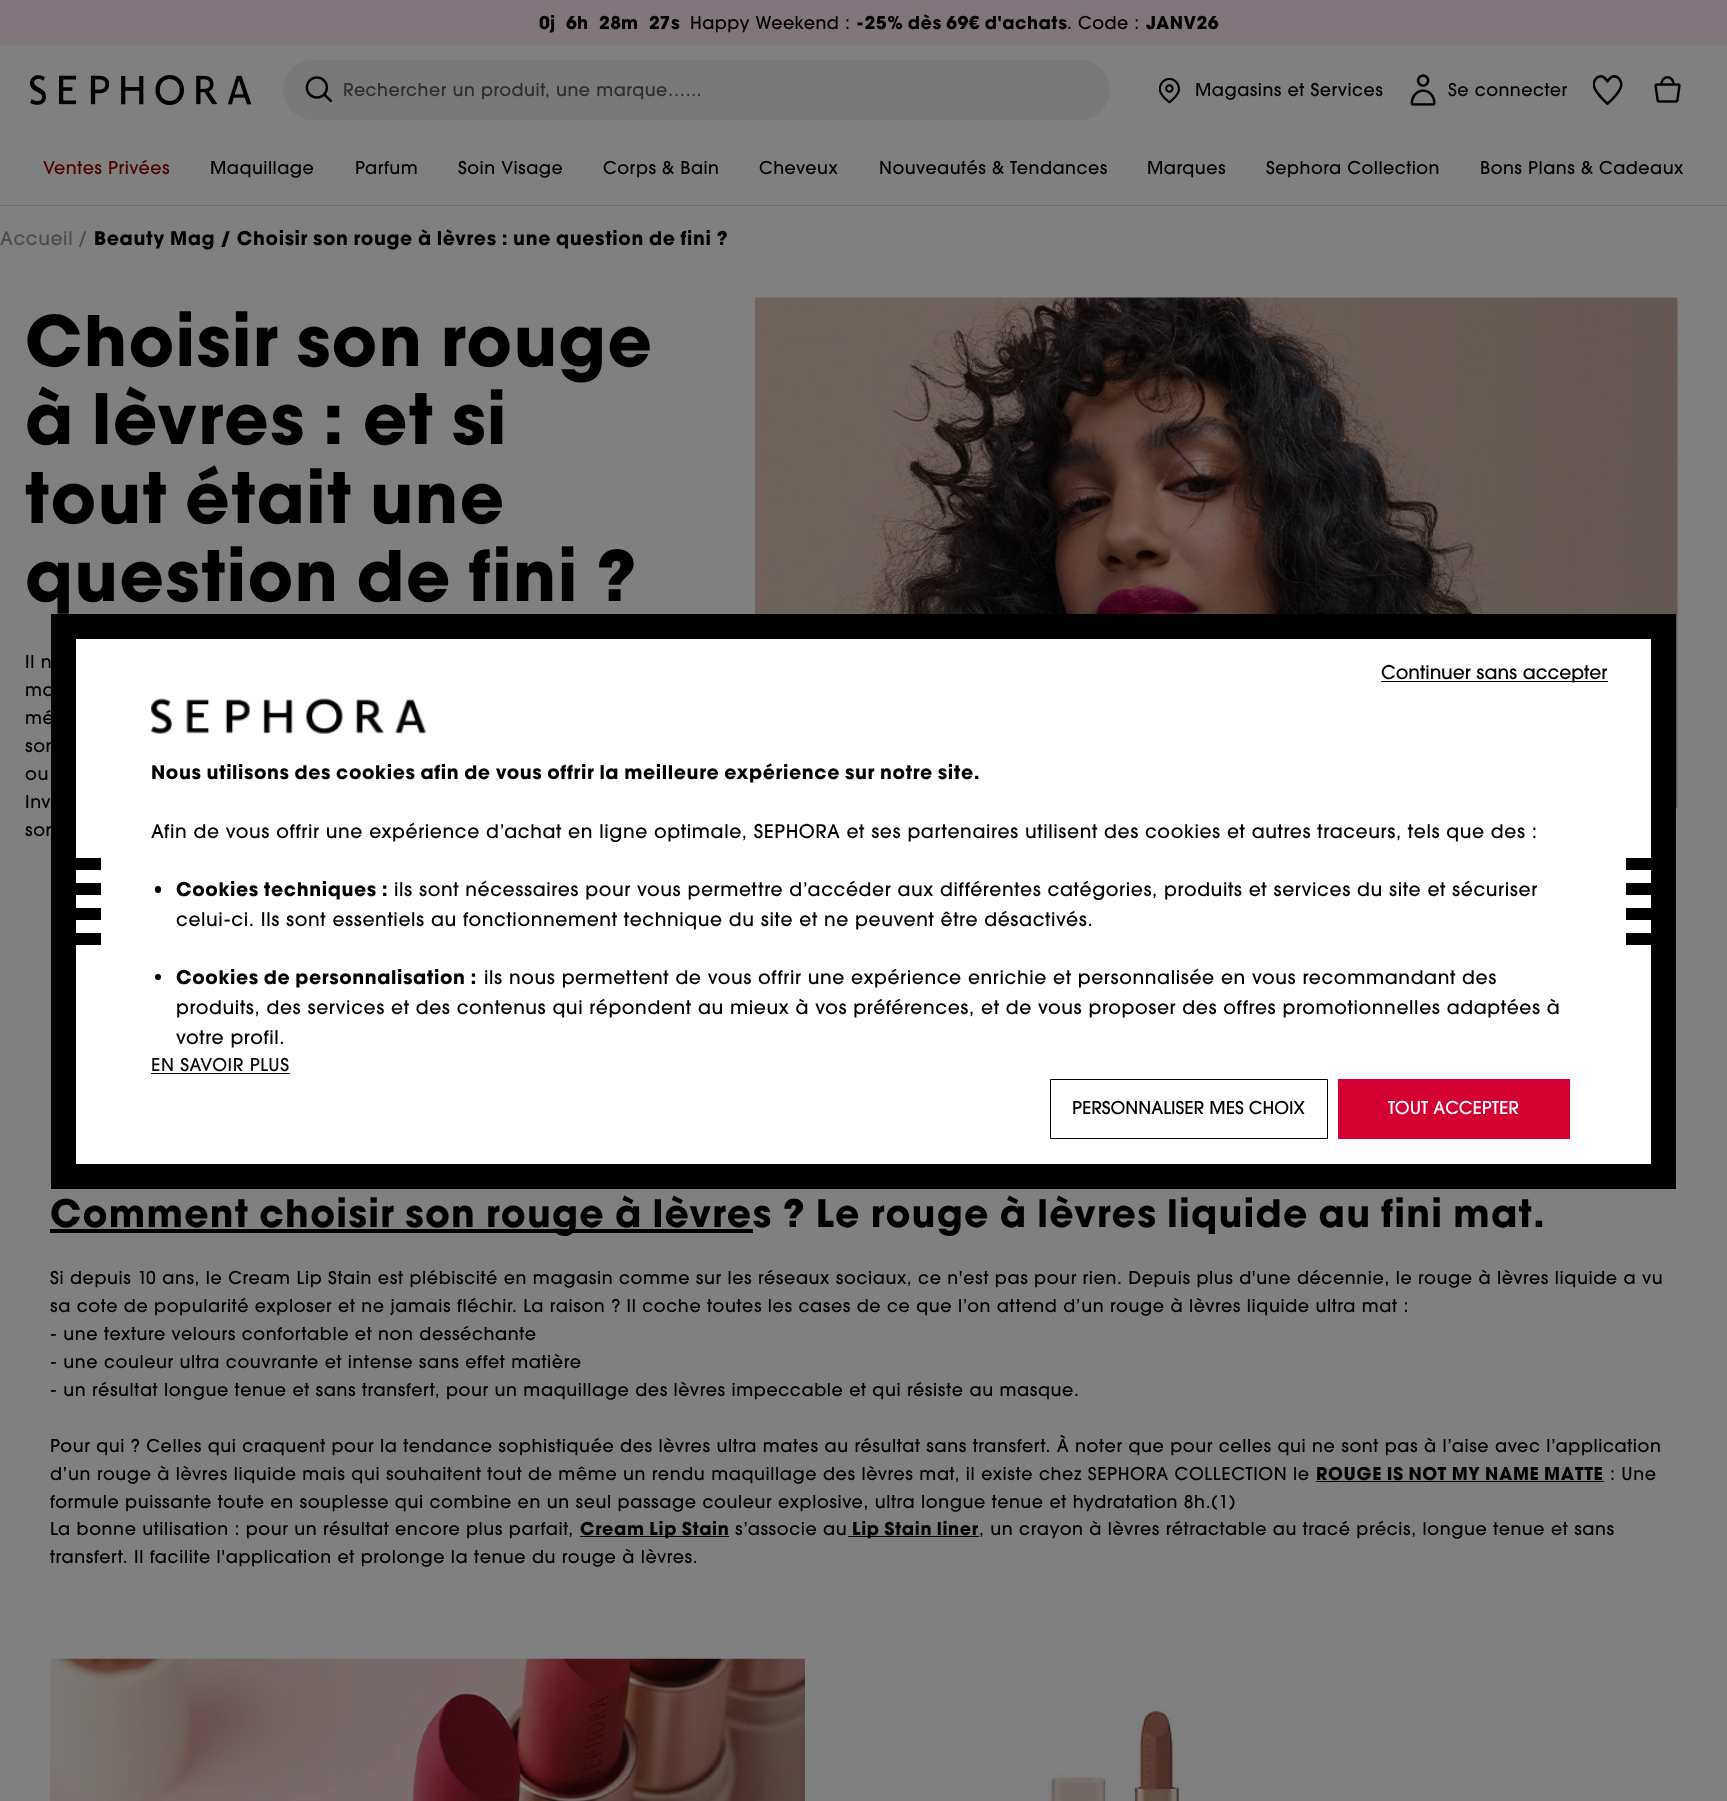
<svg xmlns="http://www.w3.org/2000/svg" width="1727" height="1801">
<style>
.a{font:bold 17.5px 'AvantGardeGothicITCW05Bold';letter-spacing:0.5px;fill:#000}
.b{font:500 17.5px 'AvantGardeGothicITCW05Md';letter-spacing:0.5px;fill:#000}
.c{font:500 17.5px 'AvantGardeGothicITCW05Md';letter-spacing:0.5px;fill:#2d2d2d}
.d{font:500 17.5px 'AvantGardeGothicITCW05Md';letter-spacing:0.5px;fill:#4c0000}
.e{font:500 18.75px 'AvantGardeGothicITCW05Md';letter-spacing:0.62px;fill:#4c4c4c}
.f{font:bold 18.75px 'AvantGardeGothicITCW05Bold';letter-spacing:0.62px;fill:#000}
.g{font:bold 68.75px 'AvantGardeGothicITCW05Bold';letter-spacing:1.25px;fill:#000}
.h{font:500 17.5px 'AvantGardeGothicITCW05Md';letter-spacing:0.62px;fill:#000}
.i{font:bold 37.5px 'AvantGardeGothicITCW05Bold';letter-spacing:1.25px;fill:#000}
.j{font:bold 17.5px 'AvantGardeGothicITCW05Bold';letter-spacing:0.62px;fill:#000}
.k{font:500 18.75px 'AvantGardeGothicITCW05Md';fill:#000}
.l{font:500 17.5px 'AvantGardeGothicITCW05Md';letter-spacing:0.62px;fill:#0a0a0a}
.m{font:500 17.5px 'AvantGardeGothicITCW05Md';fill:#000}
.n{font:500 17.5px 'AvantGardeGothicITCW05Md';fill:#fff}
.o{font:500 18.75px 'AvantGardeGothicITCW05Md';letter-spacing:0.62px;fill:#000}
</style>
<rect width="100%" height="100%" fill="#808080"/>
<path fill="#6c6c6c" d="M0 205h1727v1H0z"/>
<path fill="#80767b" d="M0 0h1727v45H0z"/>
<image href="1.png" x="30" y="75" width="222" height="30"/>
<rect fill="#797979" x="283" y="60" width="827" height="60" rx="30"/>
<image href="2.png" x="305" y="76" width="28" height="27"/>
<image href="3.png" x="1159" y="78" width="21" height="26"/>
<image href="4.png" x="1410" y="74" width="26" height="32"/>
<image href="5.png" x="1593" y="75" width="30" height="30"/>
<image href="6.png" x="1654" y="76" width="27" height="27"/>
<image href="7.png" x="755" y="297" width="923" height="511"/>
<path fill="#000" d="M50 1229h703v4H50z"/>
<path fill="#000" d="M1316 1481h288v1H1316z"/>
<path fill="#000" d="M580 1536h149v1H580z"/>
<path fill="#000" d="M848 1536h131v1H848z"/>
<image href="8.png" x="50" y="1658" width="755" height="143"/>
<image href="9.png" x="1047" y="1707" width="135" height="94"/>
<text class="a" x="550" y="29">j</text>
<text class="a" x="539" y="29">0</text>
<text class="a" x="566" y="29">6</text>
<text class="a" x="577" y="29">h</text>
<text class="a" x="599" y="29">28</text>
<text class="a" x="621" y="29">m</text>
<text class="a" x="649" y="29">27</text>
<text class="a" x="671" y="29">s</text>
<text class="b" x="690" y="29">Happy Weekend :</text>
<text class="a" x="856" y="29">-25% dès 69€ d'achats</text>
<text class="b" x="1067" y="29">. Code :</text>
<text class="a" x="1146" y="29">JANV26</text>
<text class="c" x="343" y="96">Rechercher un produit, une marque…...</text>
<text class="b" x="1195" y="96">Magasins et Services</text>
<text class="b" x="1448" y="96">Se connecter</text>
<text class="d" x="43" y="174">Ventes Privées</text>
<text class="b" x="210" y="174">Maquillage</text>
<text class="b" x="355" y="174">Parfum</text>
<text class="b" x="458" y="174">Soin Visage</text>
<text class="b" x="603" y="174">Corps &amp; Bain</text>
<text class="b" x="759" y="174">Cheveux</text>
<text class="b" x="879" y="174">Nouveautés &amp; Tendances</text>
<text class="b" x="1147" y="174">Marques</text>
<text class="b" x="1266" y="174">Sephora Collection</text>
<text class="b" x="1480" y="174">Bons Plans &amp; Cadeaux</text>
<text class="e" x="0" y="245">Accueil</text>
<text class="e" x="78" y="245">/</text>
<text class="f" x="94" y="245">Beauty Mag / Choisir son rouge à lèvres : une question de fini ?</text>
<text class="g" x="25" y="366">Choisir son rouge</text>
<text class="g" x="25" y="444">à lèvres : et si</text>
<text class="g" x="25" y="523">tout était une</text>
<text class="g" x="25" y="601">question de fini ?</text>
<text class="h" x="25" y="668">Il n</text>
<text class="h" x="25" y="696">ma</text>
<text class="h" x="25" y="724">mé</text>
<text class="h" x="25" y="752">son</text>
<text class="h" x="25" y="780">ou</text>
<text class="h" x="25" y="808">Inv</text>
<text class="h" x="25" y="836">son</text>
<text class="i" x="50" y="1227">Comment choisir son rouge à lèvres ? Le rouge à lèvres liquide au fini mat.</text>
<text class="h" x="50" y="1284">Si depuis 10 ans, le Cream Lip Stain est plébiscité en magasin comme sur les réseaux sociaux, ce n'est pas pour rien. Depuis plus d'une décennie, le rouge à lèvres liquide a vu</text>
<text class="h" x="50" y="1312">sa cote de popularité exploser et ne jamais fléchir. La raison ? Il coche toutes les cases de ce que l’on attend d’un rouge à lèvres liquide ultra mat :</text>
<text class="h" x="50" y="1340">- une texture velours confortable et non desséchante</text>
<text class="h" x="50" y="1368">- une couleur ultra couvrante et intense sans effet matière</text>
<text class="h" x="50" y="1396">- un résultat longue tenue et sans transfert, pour un maquillage des lèvres impeccable et qui résiste au masque.</text>
<text class="h" x="50" y="1452">Pour qui ? Celles qui craquent pour la tendance sophistiquée des lèvres ultra mates au résultat sans transfert. À noter que pour celles qui ne sont pas à l’aise avec l’application</text>
<text class="h" x="50" y="1480">d’un rouge à lèvres liquide mais qui souhaitent tout de même un rendu maquillage des lèvres mat, il existe chez SEPHORA COLLECTION le</text>
<text class="j" x="1316" y="1480">ROUGE IS NOT MY NAME MATTE</text>
<text class="h" x="1610" y="1480">: Une</text>
<text class="h" x="50" y="1508">formule puissante toute en souplesse qui combine en un seul passage couleur explosive, ultra longue tenue et hydratation 8h.(1)</text>
<text class="h" x="50" y="1535">La bonne utilisation : pour un résultat encore plus parfait,</text>
<text class="j" x="580" y="1535">Cream Lip Stain</text>
<text class="h" x="735" y="1535">s’associe au</text>
<text class="j" x="852" y="1535">Lip Stain liner</text>
<text class="h" x="979" y="1535">, un crayon à lèvres rétractable au tracé précis, longue tenue et sans</text>
<text class="h" x="50" y="1563">transfert. Il facilite l'application et prolonge la tenue du rouge à lèvres.</text>
<path fill="#fff" stroke="#000" stroke-width="25" d="M63.5 626.5h1600v550H63.5z"/>
<path fill="#000" d="M1381 681h227v1H1381z"/>
<text class="k" x="1381" y="679">Continuer sans accepter</text>
<text class="l" x="151" y="1071">EN SAVOIR PLUS</text>
<path fill="#0a0a0a" d="M151 1073h139v1H151z"/>
<path fill="none" stroke="#000" d="M1050.5 1079.5h277v59H1050.5z"/>
<text class="m" x="1072" y="1114">PERSONNALISER MES CHOIX</text>
<path fill="#d50032" d="M1338 1079h232v60H1338z"/>
<text class="n" x="1388" y="1114">TOUT ACCEPTER</text>
<path fill="#000" d="M76 858h25v12H76z"/>
<path fill="#000" d="M76 883h25v12H76z"/>
<path fill="#000" d="M76 908h25v12H76z"/>
<path fill="#000" d="M76 933h25v12H76z"/>
<image href="10.png" x="151" y="698" width="276" height="36"/>
<text class="f" x="151" y="779">Nous utilisons des cookies afin de vous offrir la meilleure expérience sur notre site.</text>
<text class="o" x="151" y="838">Afin de vous offrir une expérience d’achat en ligne optimale, SEPHORA et ses partenaires utilisent des cookies et autres traceurs, tels que des :</text>
<rect fill="#000" x="155" y="886" width="6" height="7" rx="3"/>
<text class="f" x="176" y="896">Cookies techniques :</text>
<text class="o" x="394" y="896">ils sont nécessaires pour vous permettre d’accéder aux différentes catégories, produits et services du site et sécuriser</text>
<text class="o" x="176" y="926">celui-ci. Ils sont essentiels au fonctionnement technique du site et ne peuvent être désactivés.</text>
<circle fill="#000" cx="158" cy="977" r="3"/>
<text class="f" x="176" y="984">Cookies de personnalisation :</text>
<text class="o" x="484" y="984">ils nous permettent de vous offrir une expérience enrichie et personnalisée en vous recommandant des</text>
<text class="o" x="176" y="1014">produits, des services et des contenus qui répondent au mieux à vos préférences, et de vous proposer des offres promotionnelles adaptées à</text>
<text class="o" x="176" y="1044">votre profil.</text>
<path fill="#000" d="M1626 858h25v12H1626z"/>
<path fill="#000" d="M1626 883h25v12H1626z"/>
<path fill="#000" d="M1626 908h25v12H1626z"/>
<path fill="#000" d="M1626 933h25v12H1626z"/>
</svg>
